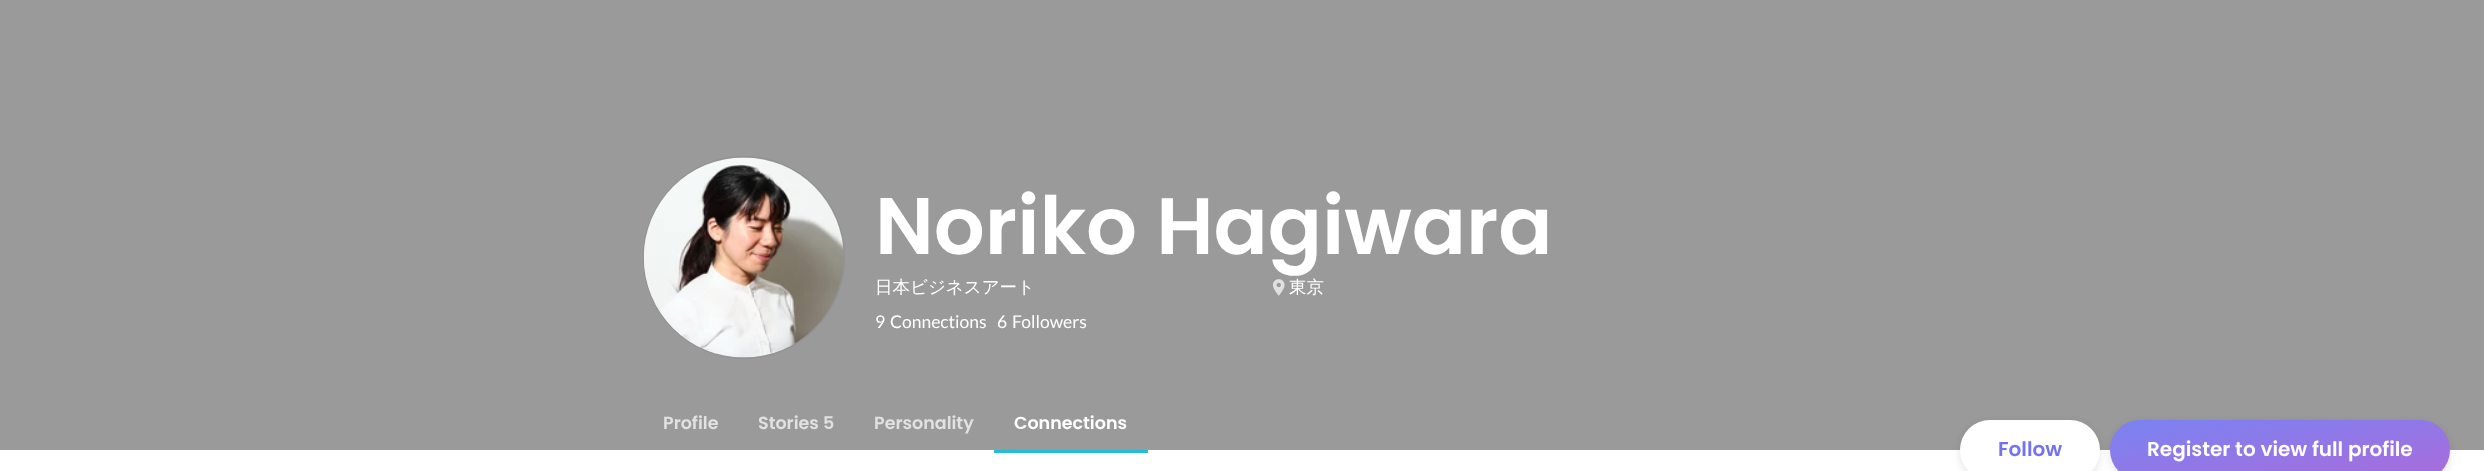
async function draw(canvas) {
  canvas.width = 2484;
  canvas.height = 471;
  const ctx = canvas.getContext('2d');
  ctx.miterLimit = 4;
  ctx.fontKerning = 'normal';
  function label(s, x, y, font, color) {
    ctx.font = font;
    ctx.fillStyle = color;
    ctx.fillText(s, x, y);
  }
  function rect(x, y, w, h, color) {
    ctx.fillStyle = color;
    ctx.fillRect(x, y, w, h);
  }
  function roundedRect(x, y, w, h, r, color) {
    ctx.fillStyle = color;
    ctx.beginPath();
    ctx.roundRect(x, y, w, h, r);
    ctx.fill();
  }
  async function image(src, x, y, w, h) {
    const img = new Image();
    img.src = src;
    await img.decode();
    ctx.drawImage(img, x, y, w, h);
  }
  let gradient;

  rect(0, 0, 2484, 471, '#fff');
  rect(0, 0, 2484, 450, '#9a9a9a');
  ctx.beginPath();
  ctx.roundRect(643.5, 156.5, 201, 202, 100.5);
  ctx.strokeStyle = '#919191';
  ctx.stroke();
  await image('assets/img1.png', 643, 157, 201, 201);
  label('Noriko Hagiwara', 875, 254, '600 80px Poppins', '#fff');
  label('日本ビジネスアート', 875, 293, '500 17.5px WenQuanYi Zen Hei', '#fff');
  await image('assets/img2.png', 1273, 279, 12, 17);
  label('東京', 1289, 293, '500 17.5px WenQuanYi Zen Hei', '#fff');
  label('9', 875, 328, '17.5px Lato', '#fff');
  label('Connections', 890, 328, '17.5px Lato', '#fff');
  label('6', 997, 328, '17.5px Lato', '#fff');
  label('Followers', 1012, 328, '17.5px Lato', '#fff');
  label('Profile', 663, 429, '600 17.5px Poppins', '#e1e1e1');
  label('Stories 5', 758, 429, '600 17.5px Poppins', '#e1e1e1');
  label('Personality', 874, 429, '600 17.5px Poppins', '#e1e1e1');
  rect(994, 450, 154, 3, '#21bddb');
  label('Connections', 1014, 429, '600 17.5px Poppins', '#fff');
  ctx.fillStyle = '#0000001a';
  ctx.filter = 'blur(4px)';
  ctx.beginPath();
  ctx.roundRect(1960, 423, 140, 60, 30);
  ctx.fill();
  ctx.filter = 'none';
  roundedRect(1960, 420, 140, 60, 30, '#fff');
  label('Follow', 1998, 456, '600 20px Poppins', '#7372f2');
  ctx.fillStyle = '#0000001a';
  ctx.filter = 'blur(4px)';
  ctx.beginPath();
  ctx.roundRect(2110, 423, 340, 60, 30);
  ctx.fill();
  ctx.filter = 'none';
  gradient = ctx.createLinearGradient(2270, 392, 2290, 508);
  gradient.addColorStop(0, '#7983f2');
  gradient.addColorStop(1, '#ab6bdb');
  ctx.fillStyle = gradient;
  ctx.beginPath();
  ctx.roundRect(2110, 420, 340, 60, 30);
  ctx.fill();
  label('Register to view full profile', 2147, 456, '600 20px Poppins', '#fff');
}

draw(document.querySelector('canvas'));
